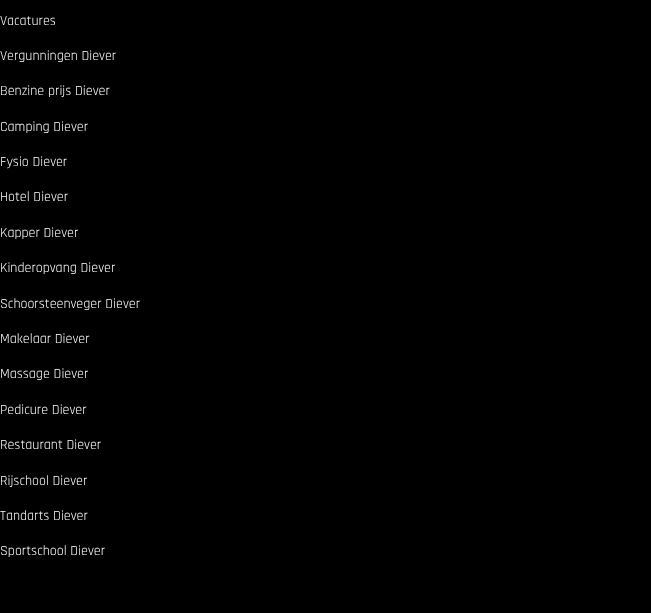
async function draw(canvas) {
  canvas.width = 651;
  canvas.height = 613;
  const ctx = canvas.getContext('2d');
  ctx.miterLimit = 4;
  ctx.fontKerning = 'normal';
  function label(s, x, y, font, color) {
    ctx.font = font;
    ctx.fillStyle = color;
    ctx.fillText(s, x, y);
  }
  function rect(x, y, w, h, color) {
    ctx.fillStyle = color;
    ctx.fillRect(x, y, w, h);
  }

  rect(0, 0, 651, 613, '#000');
  label('Vacatures', 0, 25, '14px Rajdhani', '#fff');
  label('Vergunningen Diever', 0, 60, '14px Rajdhani', '#fff');
  label('Benzine prijs Diever', 0, 95, '14px Rajdhani', '#fff');
  label('Camping Diever', 0, 131, '14px Rajdhani', '#fff');
  label('Fysio Diever', 0, 166, '14px Rajdhani', '#fff');
  label('Hotel Diever', 0, 201, '14px Rajdhani', '#fff');
  label('Kapper Diever', 0, 237, '14px Rajdhani', '#fff');
  label('Kinderopvang Diever', 0, 272, '14px Rajdhani', '#fff');
  label('Schoorsteenveger Diever', 0, 308, '14px Rajdhani', '#fff');
  label('Makelaar Diever', 0, 343, '14px Rajdhani', '#fff');
  label('Massage Diever', 0, 378, '14px Rajdhani', '#fff');
  label('Pedicure Diever', 0, 414, '14px Rajdhani', '#fff');
  label('Restaurant Diever', 0, 449, '14px Rajdhani', '#fff');
  label('Rijschool Diever', 0, 485, '14px Rajdhani', '#fff');
  label('Tandarts Diever', 0, 520, '14px Rajdhani', '#fff');
  label('Sportschool Diever', 0, 555, '14px Rajdhani', '#fff');
}

draw(document.querySelector('canvas'));
